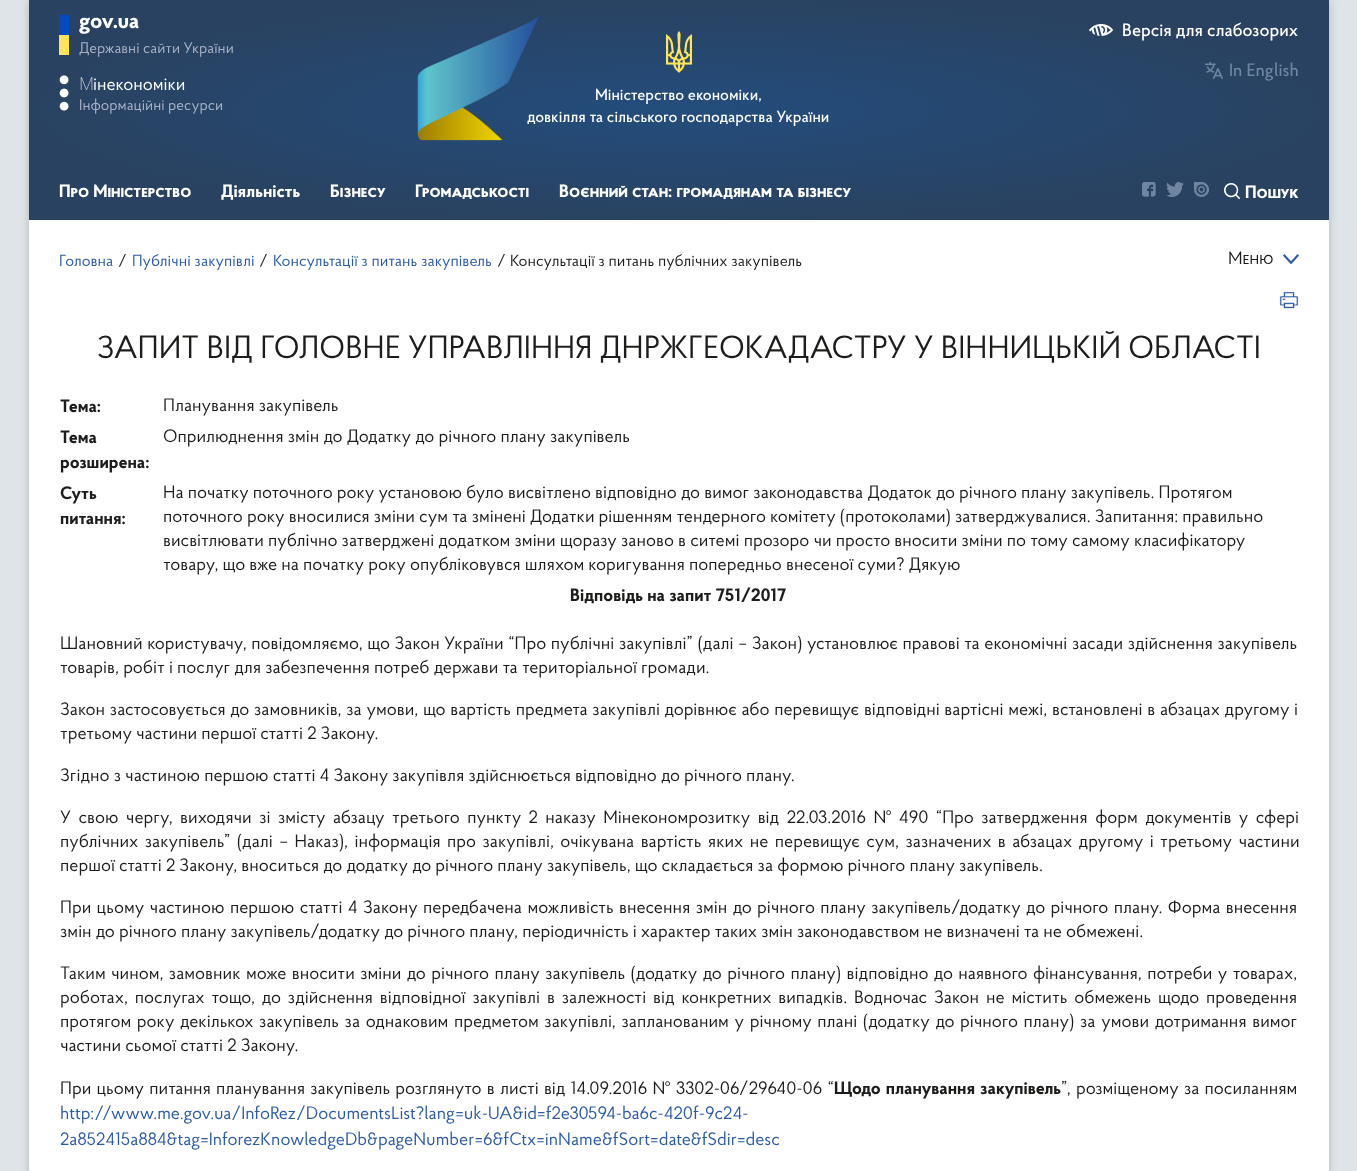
async function draw(canvas) {
  canvas.width = 1357;
  canvas.height = 1171;
  const ctx = canvas.getContext('2d');
  ctx.miterLimit = 4;
  ctx.fontKerning = 'normal';
  function label(s, x, y, font, color) {
    ctx.font = font;
    ctx.fillStyle = color;
    ctx.fillText(s, x, y);
  }
  function rect(x, y, w, h, color) {
    ctx.fillStyle = color;
    ctx.fillRect(x, y, w, h);
  }
  async function image(src, x, y, w, h) {
    const img = new Image();
    img.src = src;
    await img.decode();
    ctx.drawImage(img, x, y, w, h);
  }
  let gradient;

  rect(0, 0, 1357, 1171, '#dee4e7');
  ctx.fillStyle = '#00000033';
  ctx.filter = 'blur(4px)';
  ctx.beginPath();
  ctx.rect(29, 1, 1300, 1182);
  ctx.fill();
  ctx.filter = 'none';
  rect(29, 220, 1300, 951, '#fff');
  gradient = ctx.createRadialGradient(679, 650, 0, 679, 650, 650);
  gradient.addColorStop(0, '#234d7d');
  gradient.addColorStop(1, '#294261');
  ctx.fillStyle = gradient;
  ctx.beginPath();
  ctx.rect(29, 0, 1300, 220);
  ctx.save();
  ctx.clip();
  ctx.scale(1, 110 / 650);
  ctx.fillRect(0, 0, 1357, 6920);
  ctx.restore();
  rect(59, 15, 10, 20, '#004bc1');
  rect(59, 35, 10, 20, '#ffe358');
  label('gov.ua', 79, 28, 'bold 22.5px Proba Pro', '#fff');
  label('Державні сайти України', 79, 53, '15.25px Proba Pro', '#aab3c6');
  await image('assets/img1.png', 59, 75, 10, 36);
  label('М', 79, 90, '100 18px Noto Sans', '#fff');
  label('інекономіки', 93, 90, '18px Proba Pro', '#fff');
  label('Інформаційні ресурси', 79, 110, '15.25px Proba Pro', '#aab3c6');
  await image('assets/img2.png', 1089, 24, 24, 12);
  label('Версія для слабозорих', 1122, 36, '500 18px Proba Pro', '#fff');
  await image('assets/img3.png', 1205, 62, 19, 17);
  label('In English', 1229, 76, '500 18px Proba Pro', '#6f86a1');
  await image('assets/img4.png', 417, 16, 122, 125);
  await image('assets/img5.png', 666, 31, 26, 42);
  label('Міністерство економіки,', 595, 100, '500 16px Proba Pro', '#fff');
  label('довкілля та сільського господарства України', 527, 122, '500 16px Proba Pro', '#fff');
  label('Про Міністерство', 59, 197, 'bold 18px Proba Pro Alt', '#fff');
  label('Діяльність', 221, 197, 'bold 18px Proba Pro', '#fff');
  label('Бізнесу', 330, 197, 'bold 18px Proba Pro Alt', '#fff');
  label('Громадськості', 415, 197, 'bold 18px Proba Pro Alt', '#fff');
  label('Воєнний стан: громадянам та бізнесу', 559, 197, 'bold 18px Proba Pro Alt', '#fff');
  await image('assets/img6.png', 1142, 182, 14, 15);
  await image('assets/img7.png', 1166, 182, 18, 15);
  await image('assets/img8.png', 1194, 182, 15, 15);
  await image('assets/img9.png', 1224, 183, 16, 16);
  label('Пошук', 1245, 198, 'bold 18px Proba Pro Alt', '#fff');
  label('Головна', 59, 266, '16px Proba Pro', '#2d5ca6');
  label('/', 118, 266, '16px Proba Pro', '#1d1d1b');
  label('Публічні закупівлі', 132, 266, '16px Proba Pro', '#2d5ca6');
  label('/', 259, 266, '16px Proba Pro', '#1d1d1b');
  label('Консультації з питань закупівель', 273, 266, '16px Proba Pro', '#2d5ca6');
  label('/', 497, 266, '16px Proba Pro', '#1d1d1b');
  label('Консультації з питань публічних закупівель', 510, 266, '16px Proba Pro', '#1d1d1b');
  label('Меню', 1228, 264, '18px Proba Pro Alt', '#1d1d1b');
  await image('assets/img10.png', 1283, 254, 16, 10);
  await image('assets/img11.png', 1279, 291, 20, 18);
  label('ЗАПИТ ВІД ГОЛОВНЕ УПРАВЛІННЯ ДНРЖГЕОКАДАСТРУ У ВІННИЦЬКІЙ ОБЛАСТІ', 97, 358, '32px Proba Pro', '#1d1d1b');
  label('Тема:', 60, 412, 'bold 18px Proba Pro', '#1d1d1b');
  label('Планування закупівель', 163, 411, '18px Proba Pro', '#1d1d1b');
  label('Тема', 60, 443, 'bold 18px Proba Pro', '#1d1d1b');
  label('розширена:', 60, 468, 'bold 18px Proba Pro', '#1d1d1b');
  label('Оприлюднення змін до Додатку до річного плану закупівель', 163, 442, '18px Proba Pro', '#1d1d1b');
  label('Суть', 60, 499, 'bold 18px Proba Pro', '#1d1d1b');
  label('питання:', 60, 524, 'bold 18px Proba Pro', '#1d1d1b');
  label('На початку поточного року установою було висвітлено відповідно до вимог законодавства Додаток до річного плану закупівель. Протягом', 163, 498, '18px Proba Pro', '#1d1d1b');
  label('поточного року вносилися зміни сум та змінені Додатки рішенням тендерного комітету (протоколами) затверджувалися. Запитання: правильно', 163, 522, '18px Proba Pro', '#1d1d1b');
  label('висвітлювати публічно затверджені додатком зміни щоразу заново в ситемі прозоро чи просто вносити зміни по тому самому класифікатору', 163, 546, '18px Proba Pro', '#1d1d1b');
  label('товару, що вже на початку року опубліковувся шляхом коригування попередньо внесеної суми? Дякую', 163, 570, '18px Proba Pro', '#1d1d1b');
  label('Відповідь на запит 751/2017', 570, 601, 'bold 18px Proba Pro', '#1d1d1b');
  ctx.wordSpacing = '0.5px';
  label('Шановний користувачу, повідомляємо, що Закон України “Про публічні закупівлі” (далі – Закон) установлює правові та економічні засади здійснення закупівель', 60, 649, '18px Proba Pro', '#1d1d1b');
  ctx.wordSpacing = '0px';
  label('товарів, робіт і послуг для забезпечення потреб держави та територіальної громади.', 60, 673, '18px Proba Pro', '#1d1d1b');
  ctx.wordSpacing = '0.55px';
  label('Закон застосовується до замовників, за умови, що вартість предмета закупівлі дорівнює або перевищує відповідні вартісні межі, встановлені в абзацах другому і', 60, 715, '18px Proba Pro', '#1d1d1b');
  ctx.wordSpacing = '0px';
  label('третьому частини першої статті 2 Закону.', 60, 739, '18px Proba Pro', '#1d1d1b');
  label('Згідно з частиною першою статті 4 Закону закупівля здійснюється відповідно до річного плану.', 60, 781, '18px Proba Pro', '#1d1d1b');
  ctx.wordSpacing = '3.3px';
  label('У свою чергу, виходячи зі змісту абзацу третього пункту 2 наказу Мінекономрозитку від 22.03.2016 № 490 “Про затвердження форм документів у сфері', 60, 823, '18px Proba Pro', '#1d1d1b');
  ctx.wordSpacing = '2.25px';
  label('публічних закупівель” (далі – Наказ), інформація про закупівлі, очікувана вартість яких не перевищує сум, зазначених в абзацах другому і третьому частини', 60, 847, '18px Proba Pro', '#1d1d1b');
  ctx.wordSpacing = '0px';
  label('першої статті 2 Закону, вноситься до додатку до річного плану закупівель, що складається за формою річного плану закупівель.', 60, 871, '18px Proba Pro', '#1d1d1b');
  ctx.wordSpacing = '1.25px';
  label('При цьому частиною першою статті 4 Закону передбачена можливість внесення змін до річного плану закупівель/додатку до річного плану. Форма внесення', 60, 913, '18px Proba Pro', '#1d1d1b');
  ctx.wordSpacing = '0px';
  label('змін до річного плану закупівель/додатку до річного плану, періодичність і характер таких змін законодавством не визначені та не обмежені.', 60, 937, '18px Proba Pro', '#1d1d1b');
  ctx.wordSpacing = '1.25px';
  label('Таким чином, замовник може вносити зміни до річного плану закупівель (додатку до річного плану) відповідно до наявного фінансування, потреби у товарах,', 60, 979, '18px Proba Pro', '#1d1d1b');
  ctx.wordSpacing = '2.75px';
  label('роботах, послугах тощо, до здійснення відповідної закупівлі в залежності від конкретних випадків. Водночас Закон не містить обмежень щодо проведення', 60, 1003, '18px Proba Pro', '#1d1d1b');
  ctx.wordSpacing = '1.5px';
  label('протягом року декількох закупівель за однаковим предметом закупівлі, запланованим у річному плані (додатку до річного плану) за умови дотримання вимог', 60, 1027, '18px Proba Pro', '#1d1d1b');
  ctx.wordSpacing = '0px';
  label('частини сьомої статті 2 Закону.', 60, 1051, '18px Proba Pro', '#1d1d1b');
  ctx.wordSpacing = '1.1px';
  label('При цьому питання планування закупівель розглянуто в листі від 14.09.2016 № 3302-06/29640-06 “', 60, 1094, '18px Proba Pro', '#1d1d1b');
  ctx.wordSpacing = '1px';
  label('Щодо планування закупівель', 834, 1094, 'bold 18px Proba Pro', '#1d1d1b');
  label('”, розміщеному за посиланням', 1061, 1094, '18px Proba Pro', '#1d1d1b');
  ctx.wordSpacing = '0px';
  label('http://www.me.gov.ua/InfoRez/DocumentsList?lang=uk-UA&id=f2e30594-ba6c-420f-9c24-', 60, 1119, '18px Proba Pro', '#2d5ca6');
  label('2a852415a884&tag=InforezKnowledgeDb&pageNumber=6&fCtx=inName&fSort=date&fSdir=desc', 60, 1145, '18px Proba Pro', '#2d5ca6');
}

draw(document.querySelector('canvas'));
